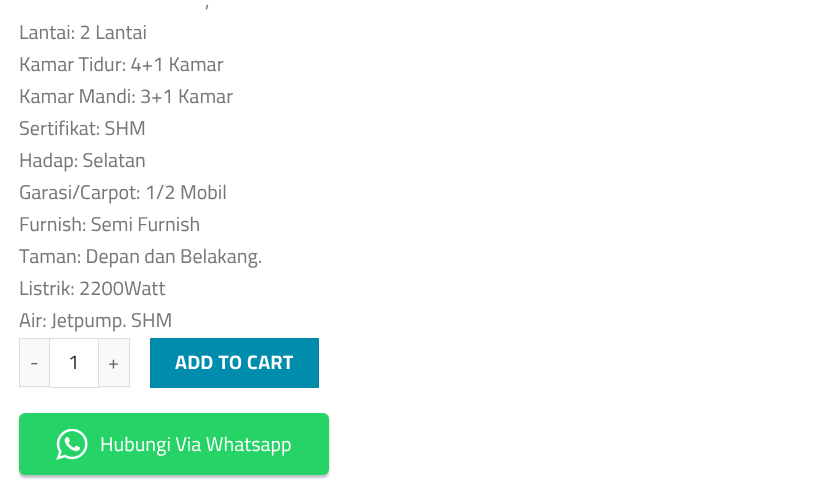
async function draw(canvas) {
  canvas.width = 829;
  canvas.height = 494;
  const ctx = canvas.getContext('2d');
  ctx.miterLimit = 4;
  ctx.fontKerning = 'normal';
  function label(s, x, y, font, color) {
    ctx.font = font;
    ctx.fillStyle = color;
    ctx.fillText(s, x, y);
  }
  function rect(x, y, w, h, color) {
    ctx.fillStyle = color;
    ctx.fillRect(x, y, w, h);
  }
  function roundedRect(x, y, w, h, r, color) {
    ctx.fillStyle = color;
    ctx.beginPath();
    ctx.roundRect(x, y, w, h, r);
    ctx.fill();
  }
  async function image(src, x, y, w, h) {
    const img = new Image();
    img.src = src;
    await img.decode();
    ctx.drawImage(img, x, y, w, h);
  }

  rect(0, 0, 829, 494, '#fff');
  label(',', 205, 7, '20px Cairo', '#777');
  label('Lantai: 2 Lantai', 19, 39, '20px Cairo', '#777');
  label('Kamar Tidur: 4+1 Kamar', 19, 71, '20px Cairo', '#777');
  label('Kamar Mandi: 3+1 Kamar', 19, 103, '20px Cairo', '#777');
  label('Sertifikat: SHM', 19, 135, '20px Cairo', '#777');
  label('Hadap: Selatan', 19, 167, '20px Cairo', '#777');
  label('Garasi/Carpot: 1/2 Mobil', 19, 199, '20px Cairo', '#777');
  label('Furnish: Semi Furnish', 19, 231, '20px Cairo', '#777');
  label('Taman: Depan dan Belakang.', 19, 263, '20px Cairo', '#777');
  label('Listrik: 2200Watt', 19, 295, '20px Cairo', '#777');
  label('Air: Jetpump. SHM', 19, 327, '20px Cairo', '#777');
  rect(20, 339, 29, 49, '#f9f9f9');
  rect(19, 338, 30, 1, '#ddd');
  rect(19, 386, 30, 1, '#ddd');
  rect(19, 338, 1, 50, '#ddd');
  ctx.letterSpacing = '0.5px';
  label('-', 30, 369, '19.5px Cairo', '#666');
  ctx.strokeStyle = '#ddd';
  ctx.strokeRect(49.5, 338.5, 49, 49);
  ctx.letterSpacing = '0px';
  label('1', 68, 369, '20px Cairo', '#333');
  rect(99, 339, 30, 49, '#f9f9f9');
  rect(99, 338, 31, 1, '#ddd');
  rect(129, 338, 1, 50, '#ddd');
  rect(99, 386, 31, 1, '#ddd');
  ctx.letterSpacing = '0.5px';
  label('+', 108, 369, '19.5px Cairo', '#666');
  ctx.fillStyle = '#008dad';
  ctx.beginPath();
  ctx.rect(150.5, 338.5, 168, 49);
  ctx.fill();
  ctx.strokeStyle = '#0086a4';
  ctx.stroke();
  label('ADD TO CART', 175, 369, 'bold 19.5px Cairo', '#fff');
  ctx.fillStyle = '#2d3e4f4d';
  ctx.filter = 'blur(1px)';
  ctx.beginPath();
  ctx.roundRect(19, 415, 310, 63, 6);
  ctx.fill();
  ctx.filter = 'none';
  roundedRect(19, 413, 310, 62, 6, '#25d366');
  await image('assets/img1.png', 56, 429, 32, 31);
  ctx.letterSpacing = '0px';
  label('Hubungi Via Whatsapp', 100, 451, '20px Cairo', '#fff');
}

draw(document.querySelector('canvas'));
